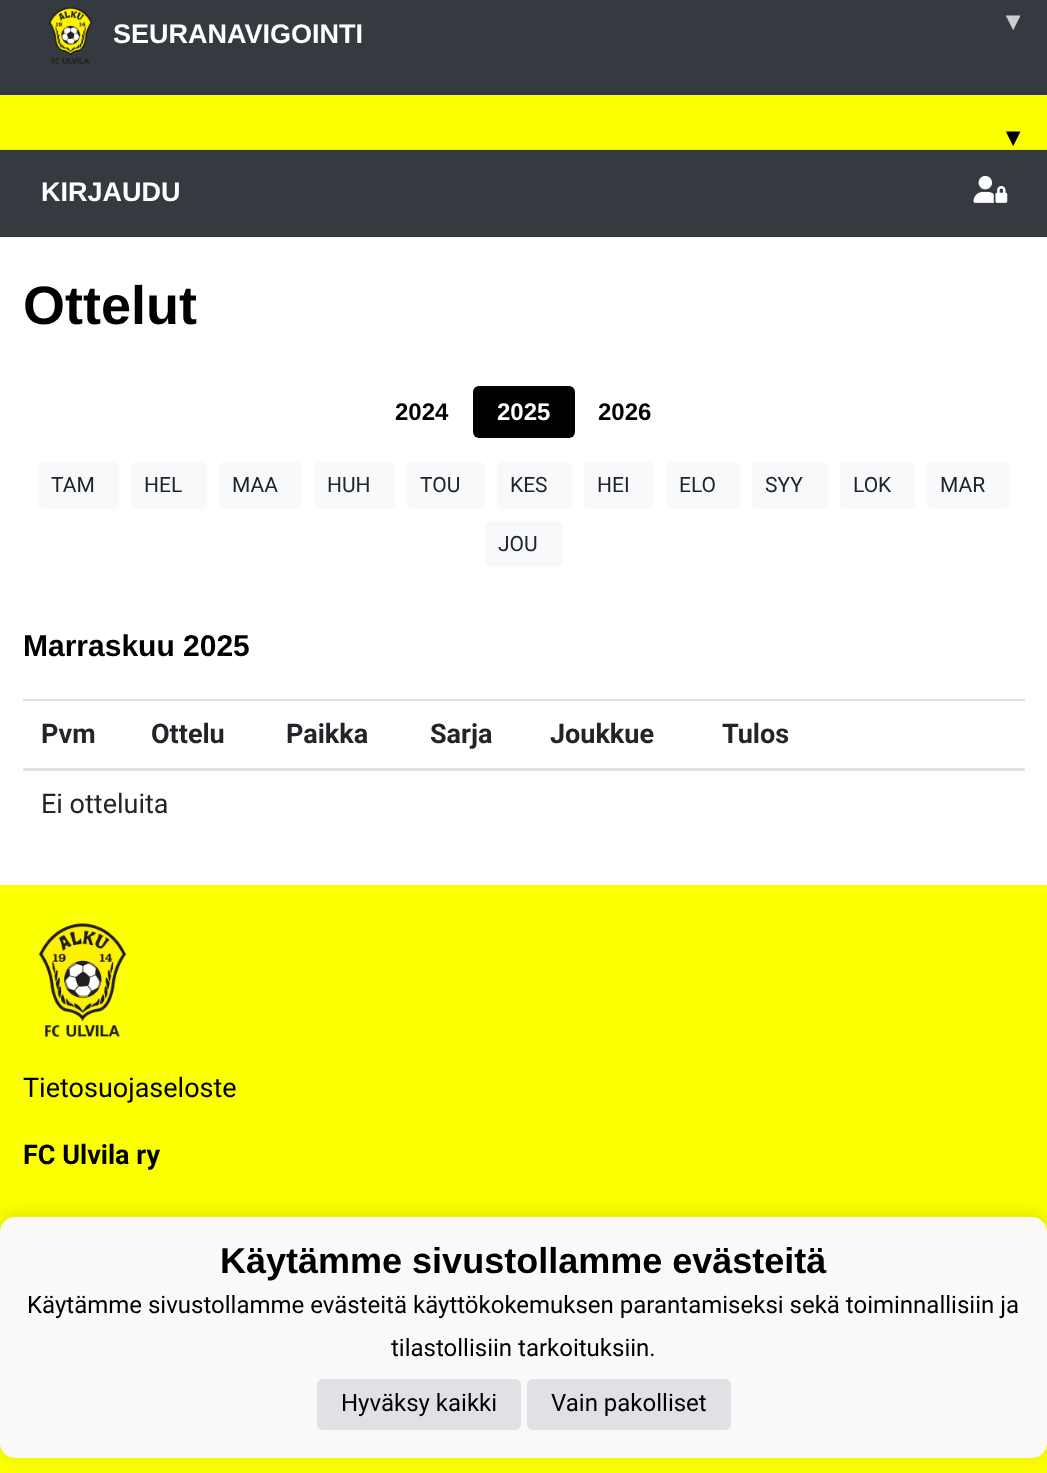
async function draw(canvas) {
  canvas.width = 1047;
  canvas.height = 1473;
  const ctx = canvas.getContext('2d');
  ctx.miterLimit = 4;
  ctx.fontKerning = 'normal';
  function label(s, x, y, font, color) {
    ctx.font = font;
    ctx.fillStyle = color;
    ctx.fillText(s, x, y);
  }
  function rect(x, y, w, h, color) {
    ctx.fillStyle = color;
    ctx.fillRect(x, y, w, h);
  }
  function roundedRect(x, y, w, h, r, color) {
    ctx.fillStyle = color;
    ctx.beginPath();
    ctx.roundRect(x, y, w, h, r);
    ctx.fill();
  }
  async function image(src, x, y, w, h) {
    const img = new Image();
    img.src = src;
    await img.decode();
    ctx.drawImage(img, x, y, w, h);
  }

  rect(0, 0, 1047, 1473, '#fff');
  rect(0, 237, 1047, 1, '#f2f2f2');
  rect(0, 0, 1047, 93, '#343a40');
  rect(0, 93, 1047, 2, '#31373d');
  await image('assets/img1.png', 48, 7, 45, 57);
  label('SEURANAVIGOINTI', 113, 43, 'bold 27px Liberation Sans', '#fff');
  label('▾', 1006, 30, 'bold 27px DejaVu Sans', '#cccecf');
  rect(0, 95, 1047, 54, '#fbff00');
  rect(0, 149, 1047, 1, '#eef200');
  label('▾', 1006, 146, 'bold 27px DejaVu Sans', '#000');
  rect(0, 151, 1047, 85, '#343a40');
  rect(0, 236, 1047, 1, '#31373d');
  rect(0, 150, 1047, 1, '#31373d');
  label('KIRJAUDU', 41, 201, 'bold 27px Liberation Sans', '#fff');
  await image('assets/img2.png', 973, 175, 35, 28);
  label('Ottelut', 23, 324, 'bold 54px Liberation Sans', '#000');
  label('2024', 395, 420, 'bold 24px Liberation Sans', '#000');
  roundedRect(473, 386, 102, 52, 6, '#000');
  label('2025', 497, 420, 'bold 24px Liberation Sans', '#fff');
  label('2026', 598, 420, 'bold 24px Liberation Sans', '#000');
  roundedRect(38, 462, 81, 47, 5, '#f8f9fa');
  label('TAM', 51, 492, '21px Roboto', '#212529');
  roundedRect(131, 462, 76, 47, 5, '#f8f9fa');
  label('HEL', 144, 492, '21px Roboto', '#212529');
  roundedRect(219, 462, 83, 47, 5, '#f8f9fa');
  label('MAA', 232, 492, '21px Roboto', '#212529');
  roundedRect(314, 462, 81, 47, 5, '#f8f9fa');
  label('HUH', 327, 492, '21px Roboto', '#212529');
  roundedRect(407, 462, 78, 47, 5, '#f8f9fa');
  label('TOU', 420, 492, '21px Roboto', '#212529');
  roundedRect(497, 462, 75, 47, 5, '#f8f9fa');
  label('KES', 510, 492, '21px Roboto', '#212529');
  roundedRect(584, 462, 70, 47, 5, '#f8f9fa');
  label('HEI', 597, 492, '21px Roboto', '#212529');
  roundedRect(666, 462, 74, 47, 5, '#f8f9fa');
  label('ELO', 679, 492, '21px Roboto', '#212529');
  roundedRect(752, 462, 76, 47, 5, '#f8f9fa');
  label('SYY', 765, 492, '21px Roboto', '#212529');
  roundedRect(840, 462, 75, 47, 5, '#f8f9fa');
  label('LOK', 853, 492, '21px Roboto', '#212529');
  roundedRect(927, 462, 83, 47, 5, '#f8f9fa');
  label('MAR', 940, 492, '21px Roboto', '#212529');
  roundedRect(485, 521, 78, 46, 5, '#f8f9fa');
  label('JOU', 498, 551, '21px Roboto', '#212529');
  label('Marraskuu 2025', 23, 656, 'bold 30px Liberation Sans', '#000');
  label('Pvm', 41, 743, 'bold 27px Roboto', '#212529');
  label('Ottelu', 151, 743, 'bold 27px Roboto', '#212529');
  label('Paikka', 286, 743, 'bold 27px Roboto', '#212529');
  label('Sarja', 430, 743, 'bold 27px Roboto', '#212529');
  label('Joukkue', 550, 743, 'bold 27px Roboto', '#212529');
  rect(23, 699, 1002, 2, '#dee2e6');
  rect(23, 768, 1002, 3, '#dee2e6');
  label('Tulos', 722, 743, 'bold 27px Roboto', '#212529');
  label('Ei otteluita', 41, 813, '27px Roboto', '#212529');
  rect(0, 885, 1047, 588, '#fbff00');
  await image('assets/img3.png', 38, 923, 89, 114);
  label('Tietosuojaseloste', 23, 1097, '27px Roboto', '#000');
  label('FC Ulvila ry', 23, 1164, 'bold 27px Roboto', '#000');
  ctx.fillStyle = '#0000001a';
  ctx.filter = 'blur(7.5px)';
  ctx.beginPath();
  ctx.roundRect(0, 1214, 1047, 241, 15);
  ctx.fill();
  ctx.filter = 'none';
  roundedRect(0, 1217, 1047, 241, 15, '#faf8f8');
  label('Käytämme sivustollamme evästeitä', 220, 1273, 'bold 36px Liberation Sans', '#000');
  label('Käytämme sivustollamme evästeitä käyttökokemuksen parantamiseksi sekä toiminnallisiin ja', 27, 1313, '24px Roboto', '#000');
  label('tilastollisiin tarkoituksiin.', 391, 1356, '24px Roboto', '#000');
  roundedRect(317, 1379, 204, 51, 6, '#dfe1e5');
  label('Hyväksy kaikki', 341, 1411, '24px Roboto', '#000');
  roundedRect(527, 1379, 204, 51, 6, '#dfe1e5');
  label('Vain pakolliset', 551, 1411, '24px Roboto', '#000');
}

draw(document.querySelector('canvas'));
